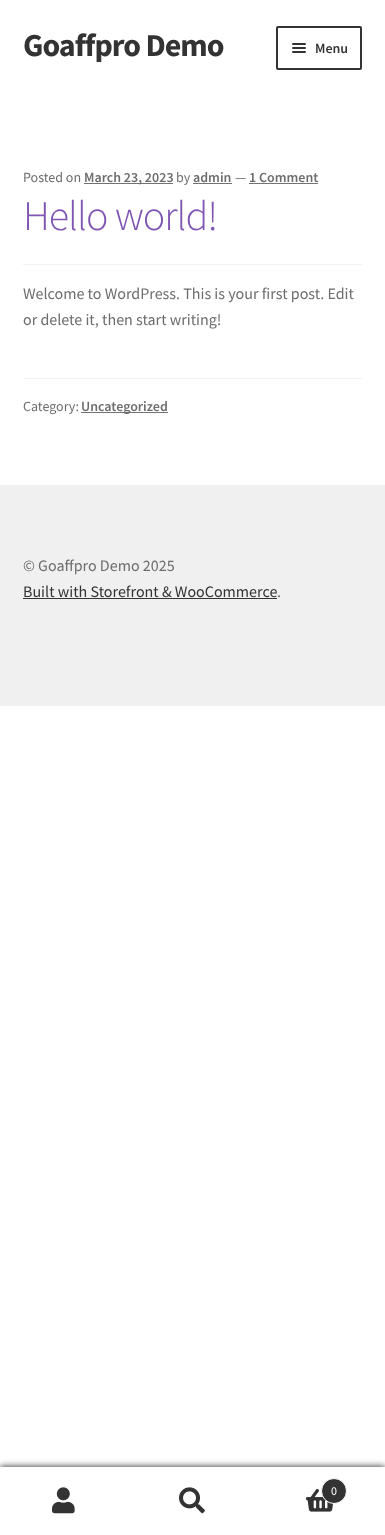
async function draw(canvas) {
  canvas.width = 385;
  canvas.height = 1535;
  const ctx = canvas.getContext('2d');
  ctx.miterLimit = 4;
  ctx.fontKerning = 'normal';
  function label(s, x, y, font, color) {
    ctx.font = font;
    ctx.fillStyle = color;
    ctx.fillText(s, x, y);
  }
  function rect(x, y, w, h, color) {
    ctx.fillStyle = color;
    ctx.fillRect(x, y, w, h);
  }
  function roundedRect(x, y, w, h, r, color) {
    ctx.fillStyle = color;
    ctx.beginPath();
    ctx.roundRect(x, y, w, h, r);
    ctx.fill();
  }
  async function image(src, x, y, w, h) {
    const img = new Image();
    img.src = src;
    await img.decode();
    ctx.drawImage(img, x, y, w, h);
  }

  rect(0, 0, 385, 1535, '#fff');
  ctx.letterSpacing = '-1px';
  label('Goaffpro Demo', 23, 56, 'bold 32px Source Sans Pro', '#333');
  ctx.beginPath();
  ctx.roundRect(277, 27, 84, 42, 1);
  ctx.strokeStyle = '#333';
  ctx.lineWidth = 2;
  ctx.stroke();
  roundedRect(292, 43, 14, 2, 1, '#333');
  roundedRect(292, 47, 14, 2, 1, '#333');
  ctx.letterSpacing = '0px';
  label('Menu', 315, 53, '600 14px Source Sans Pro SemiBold', '#333');
  roundedRect(292, 51, 14, 2, 1, '#333');
  rect(23, 264, 339, 1, '#f2f2f2');
  label('Posted on', 23, 182, '14px Source Sans Pro', '#6d6d6d');
  rect(84, 183, 89, 1, '#727272');
  label('March 23, 2023', 84, 182, '600 14px Source Sans Pro SemiBold', '#6d6d6d');
  label('by', 176, 182, '14px Source Sans Pro', '#6d6d6d');
  rect(193, 183, 39, 1, '#727272');
  label('admin', 193, 182, '600 14px Source Sans Pro SemiBold', '#6d6d6d');
  label('—', 235, 182, '14px Source Sans Pro', '#6d6d6d');
  label('1 Comment', 249, 182, '600 14px Source Sans Pro SemiBold', '#6d6d6d');
  rect(249, 183, 69, 1, '#727272');
  ctx.letterSpacing = '-1px';
  label('Hello world!', 23, 230, '300 42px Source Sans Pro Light', '#7f54b3');
  ctx.letterSpacing = '0px';
  label('Welcome to WordPress. This is your first post. Edit', 23, 299, '16px Source Sans Pro', '#6d6d6d');
  label('or delete it, then start writing!', 23, 325, '16px Source Sans Pro', '#6d6d6d');
  rect(23, 378, 339, 1, '#f2f2f2');
  label('Category:', 23, 411, '14px Source Sans Pro', '#6d6d6d');
  rect(81, 412, 87, 1, '#727272');
  label('Uncategorized', 81, 411, '600 14px Source Sans Pro SemiBold', '#6d6d6d');
  rect(0, 485, 385, 221, '#f0f0f0');
  label('© Goaffpro Demo 2025', 23, 571, '16px Source Sans Pro', '#6d6d6d');
  label('Built with Storefront & WooCommerce', 23, 597, '16px Source Sans Pro', '#333');
  rect(23, 598, 254, 1, '#333');
  label('.', 277, 597, '16px Source Sans Pro', '#6d6d6d');
  ctx.fillStyle = '#000000b3';
  ctx.filter = 'blur(3px)';
  ctx.beginPath();
  ctx.rect(0, 1466, 385, 69);
  ctx.fill();
  ctx.filter = 'none';
  rect(0, 1467, 385, 68, '#fff');
  await image('assets/img1.png', 52, 1487, 23, 27);
  await image('assets/img2.png', 179, 1487, 26, 27);
  await image('assets/img3.png', 306, 1489, 28, 23);
  ctx.fillStyle = '#333';
  ctx.beginPath();
  ctx.arc(334, 1491, 12.5, 0, 2 * Math.PI);
  ctx.fill();
  ctx.strokeStyle = '#fff';
  ctx.lineWidth = 1;
  ctx.stroke();
  label('0', 331, 1495, '12px Source Sans Pro', '#fff');
}

draw(document.querySelector('canvas'));
